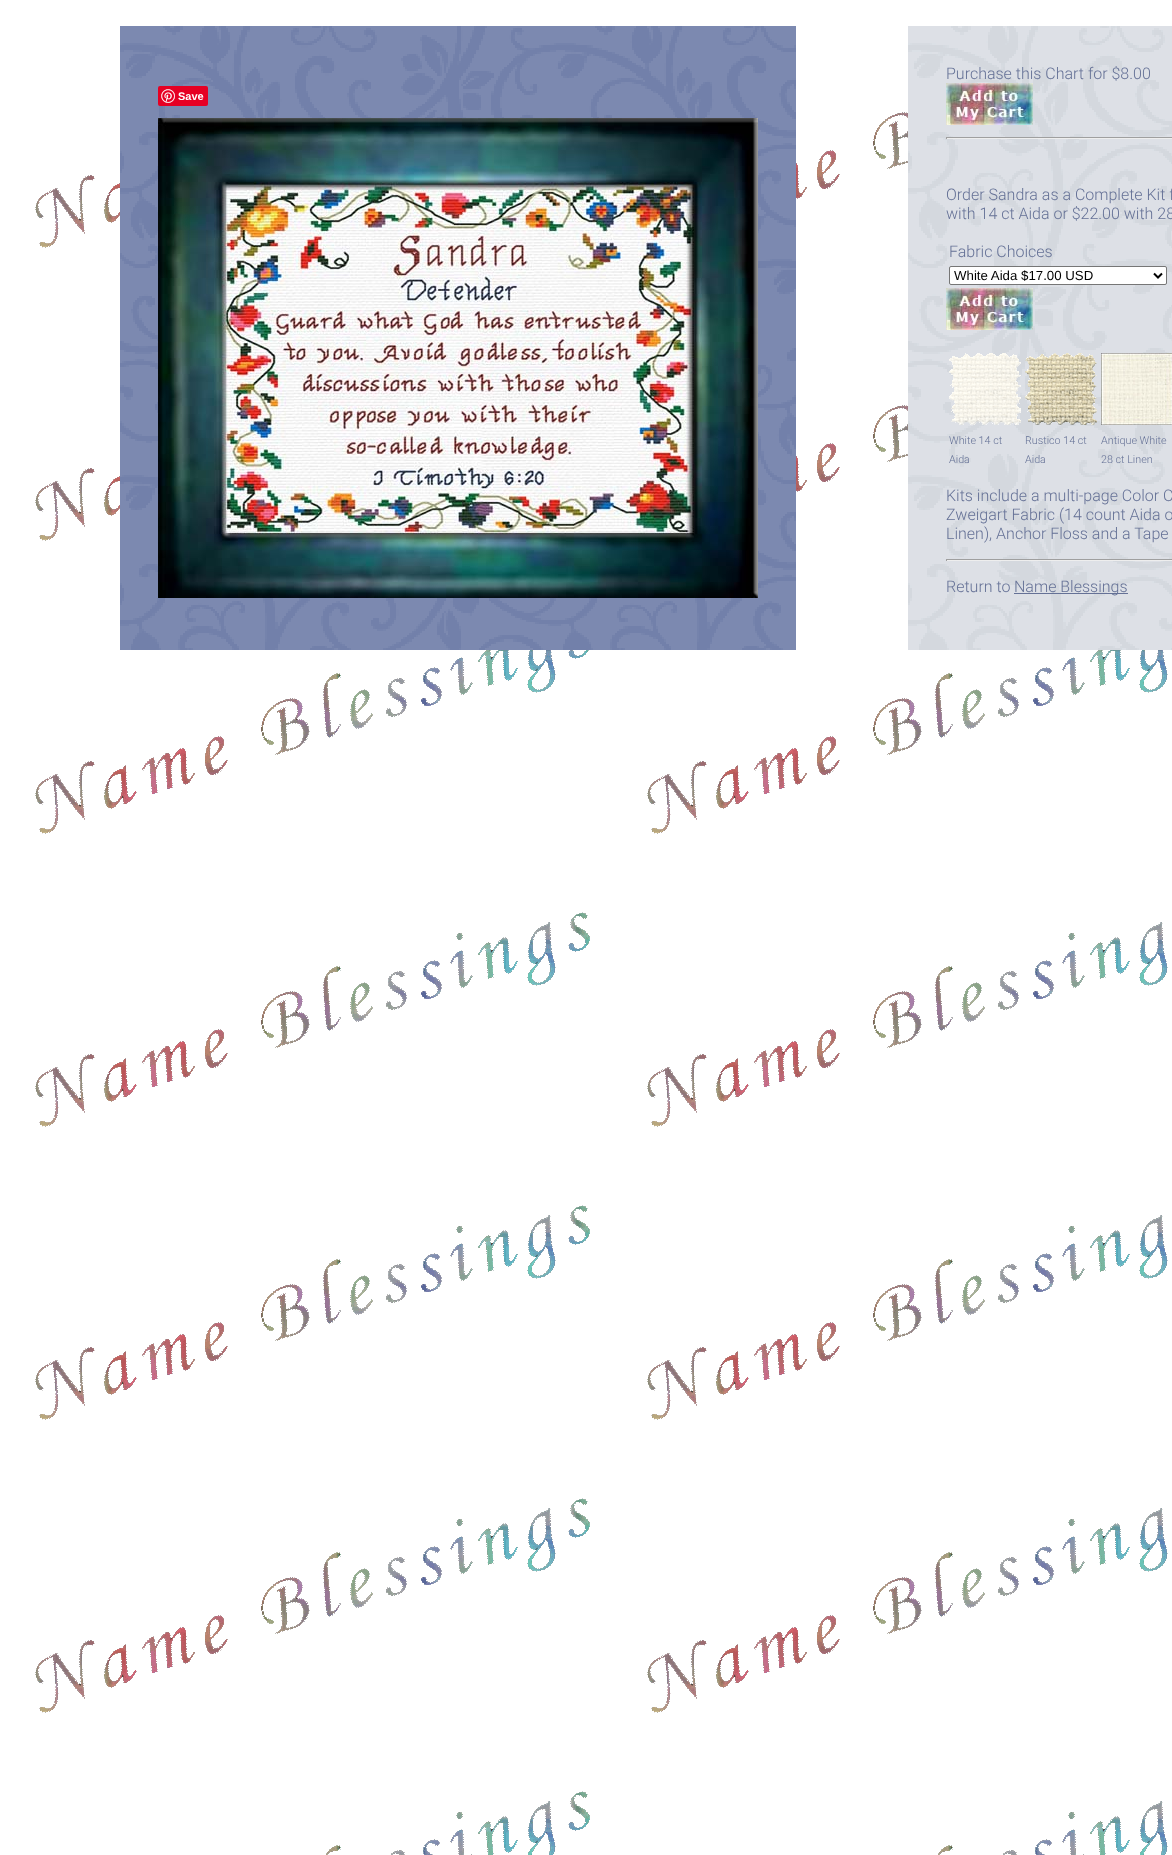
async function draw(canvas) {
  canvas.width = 1172;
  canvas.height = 1855;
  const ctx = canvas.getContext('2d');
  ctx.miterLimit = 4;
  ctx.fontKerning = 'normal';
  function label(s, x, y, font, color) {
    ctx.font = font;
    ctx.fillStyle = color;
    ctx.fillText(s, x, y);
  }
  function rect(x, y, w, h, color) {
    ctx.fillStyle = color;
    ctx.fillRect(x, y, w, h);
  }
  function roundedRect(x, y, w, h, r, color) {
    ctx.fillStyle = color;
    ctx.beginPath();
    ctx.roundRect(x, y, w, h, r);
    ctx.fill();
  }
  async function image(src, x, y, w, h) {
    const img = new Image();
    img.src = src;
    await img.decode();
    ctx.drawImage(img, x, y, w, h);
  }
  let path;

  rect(0, 0, 1172, 1855, '#fff');
  await image('assets/img1.png', 35, 112, 1133, 1743);
  await image('assets/img2.png', 120, 26, 676, 624);
  roundedRect(158, 86, 50, 20, 2, '#e60023');
  await image('assets/img3.png', 161, 89, 14, 14);
  label('Save', 178, 100, 'bold 11px Liberation Sans', '#fff');
  await image('assets/img4.png', 158, 118, 600, 480);
  await image('assets/img5.png', 908, 26, 264, 624);
  label('Purchase this Chart for $8.00', 946, 79, '300 16px Roboto', '#657196');
  await image('assets/img6.png', 946, 83, 87, 42);
  rect(946, 137, 226, 1, '#9f9f9f');
  rect(946, 138, 226, 1, '#eee');
  rect(946, 137, 1, 2, '#9f9f9f');
  label('Order Sandra as a Complete Kit f', 946, 200, '300 16px Roboto', '#657196');
  label('with 14 ct Aida or $22.00 with 28', 946, 219, '300 16px Roboto', '#657196');
  label('Fabric Choices', 949, 257, '300 16px Roboto', '#657196');
  ctx.fillStyle = '#fff';
  ctx.beginPath();
  ctx.roundRect(949.5, 266.5, 217, 18, 1.5);
  ctx.fill();
  ctx.strokeStyle = '#767676';
  ctx.stroke();
  path = new Path2D('M1154 273.5L1158 277.5L1162 273.5');
  ctx.strokeStyle = '#000';
  ctx.lineWidth = 2;
  ctx.stroke(path);
  label('White Aida $17.00 USD', 954, 280, '13.25px Liberation Sans', '#000');
  await image('assets/img6.png', 946, 288, 87, 42);
  await image('assets/img7.png', 949, 353, 72, 72);
  label('White 14 ct', 949, 444, '300 10.75px Roboto', '#657196');
  label('Aida', 949, 463, '300 10.75px Roboto', '#657196');
  await image('assets/img8.png', 1025, 353, 72, 72);
  label('Rustico 14 ct', 1025, 444, '300 10.75px Roboto', '#657196');
  label('Aida', 1025, 463, '300 10.75px Roboto', '#657196');
  await image('assets/img9.png', 1101, 353, 71, 72);
  label('Antique White', 1101, 444, '300 10.75px Roboto', '#657196');
  label('28 ct Linen', 1101, 463, '300 10.75px Roboto', '#657196');
  label('Kits include a multi-page Color C', 946, 501, '300 16px Roboto', '#657196');
  label('Zweigart Fabric (14 count Aida o', 946, 520, '300 16px Roboto', '#657196');
  label('Linen), Anchor Floss and a Tape', 946, 539, '300 16px Roboto', '#657196');
  rect(946, 559, 226, 1, '#9f9f9f');
  rect(946, 560, 226, 1, '#eee');
  rect(946, 559, 1, 2, '#9f9f9f');
  label('Return to', 946, 592, '300 16px Roboto', '#657196');
  rect(1014, 593, 114, 1, '#657196');
  label('Name Blessings', 1014, 592, '300 16px Roboto', '#657196');
}

draw(document.querySelector('canvas'));
